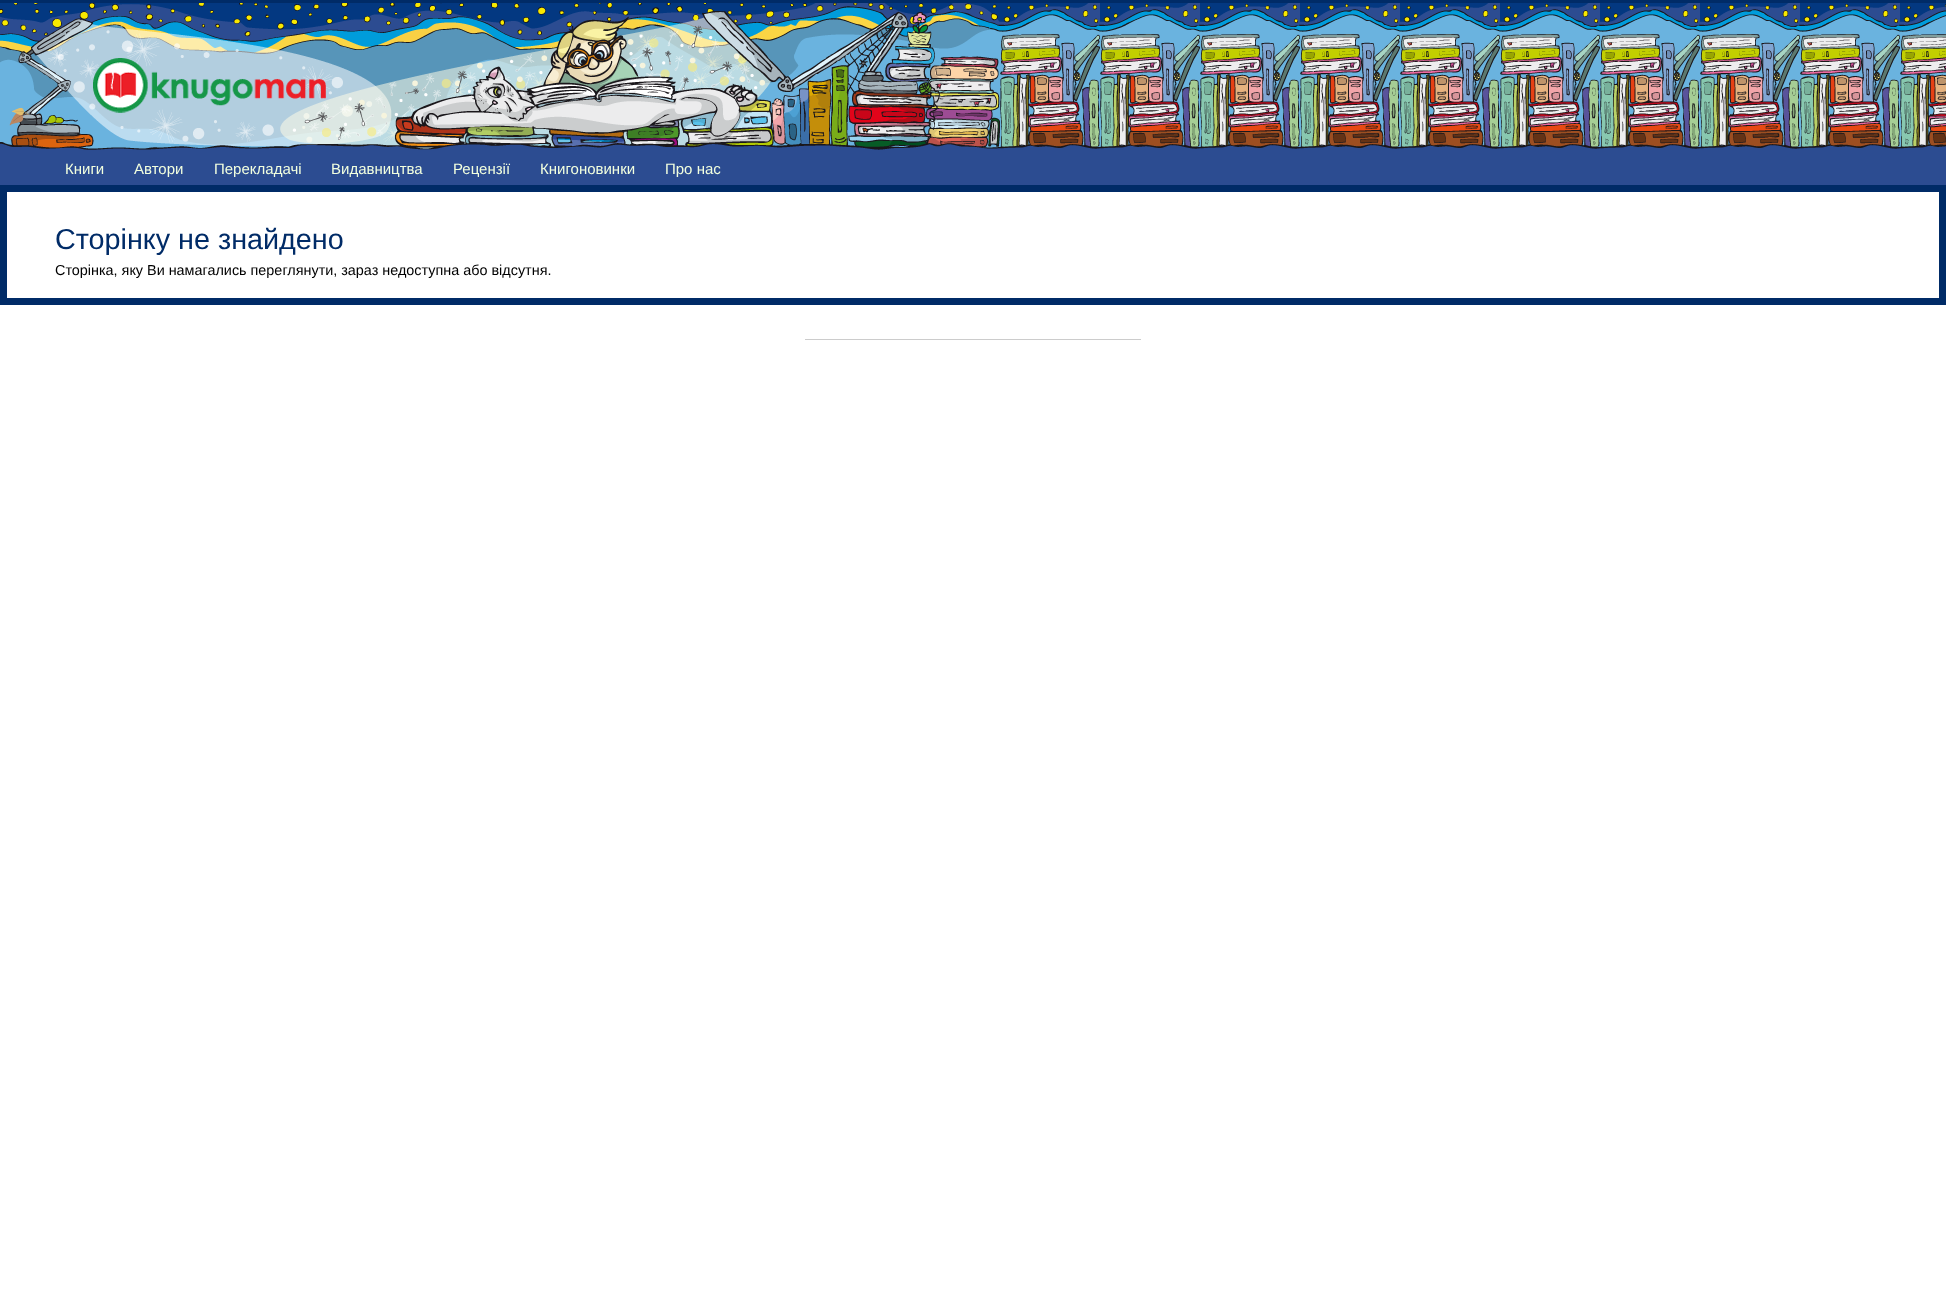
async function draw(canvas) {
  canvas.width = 1946;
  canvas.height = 1303;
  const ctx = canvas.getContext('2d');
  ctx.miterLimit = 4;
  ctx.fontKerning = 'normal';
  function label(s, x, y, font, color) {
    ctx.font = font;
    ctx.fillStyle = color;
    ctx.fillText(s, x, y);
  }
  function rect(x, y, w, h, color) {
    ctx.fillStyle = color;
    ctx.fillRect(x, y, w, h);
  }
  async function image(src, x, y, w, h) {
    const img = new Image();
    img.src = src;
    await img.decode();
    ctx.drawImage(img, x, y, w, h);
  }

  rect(0, 0, 1946, 1303, '#fff');
  await image('assets/img1.png', 0, 3, 1946, 150);
  await image('assets/img2.png', 0, 3, 1000, 147);
  rect(0, 0, 1946, 3, '#002b67');
  await image('assets/img3.png', 93, 58, 233, 55);
  rect(0, 153, 1946, 32, '#2c4c91');
  label('Книги', 65, 174, '15px Liberation Sans', '#f2ffdf');
  label('Автори', 134, 174, '15px Liberation Sans', '#f2ffdf');
  label('Перекладачі', 214, 174, '15px Liberation Sans', '#f2ffdf');
  label('Видавництва', 331, 174, '15px Liberation Sans', '#f2ffdf');
  label('Рецензії', 453, 174, '15px Liberation Sans', '#f2ffdf');
  label('Книгоновинки', 540, 174, '15px Liberation Sans', '#f2ffdf');
  label('Про нас', 665, 174, '15px Liberation Sans', '#f2ffdf');
  ctx.strokeStyle = '#002b67';
  ctx.lineWidth = 7;
  ctx.strokeRect(3.5, 188.5, 1939, 113);
  label('Сторінку не знайдено', 55, 249, '28.75px Liberation Sans', '#002b67');
  label('Сторінка, яку Ви намагались переглянути, зараз недоступна або відсутня.', 55, 275, '14.4px Liberation Sans', '#000');
  rect(805, 339, 336, 1, '#ccc');
}

draw(document.querySelector('canvas'));
